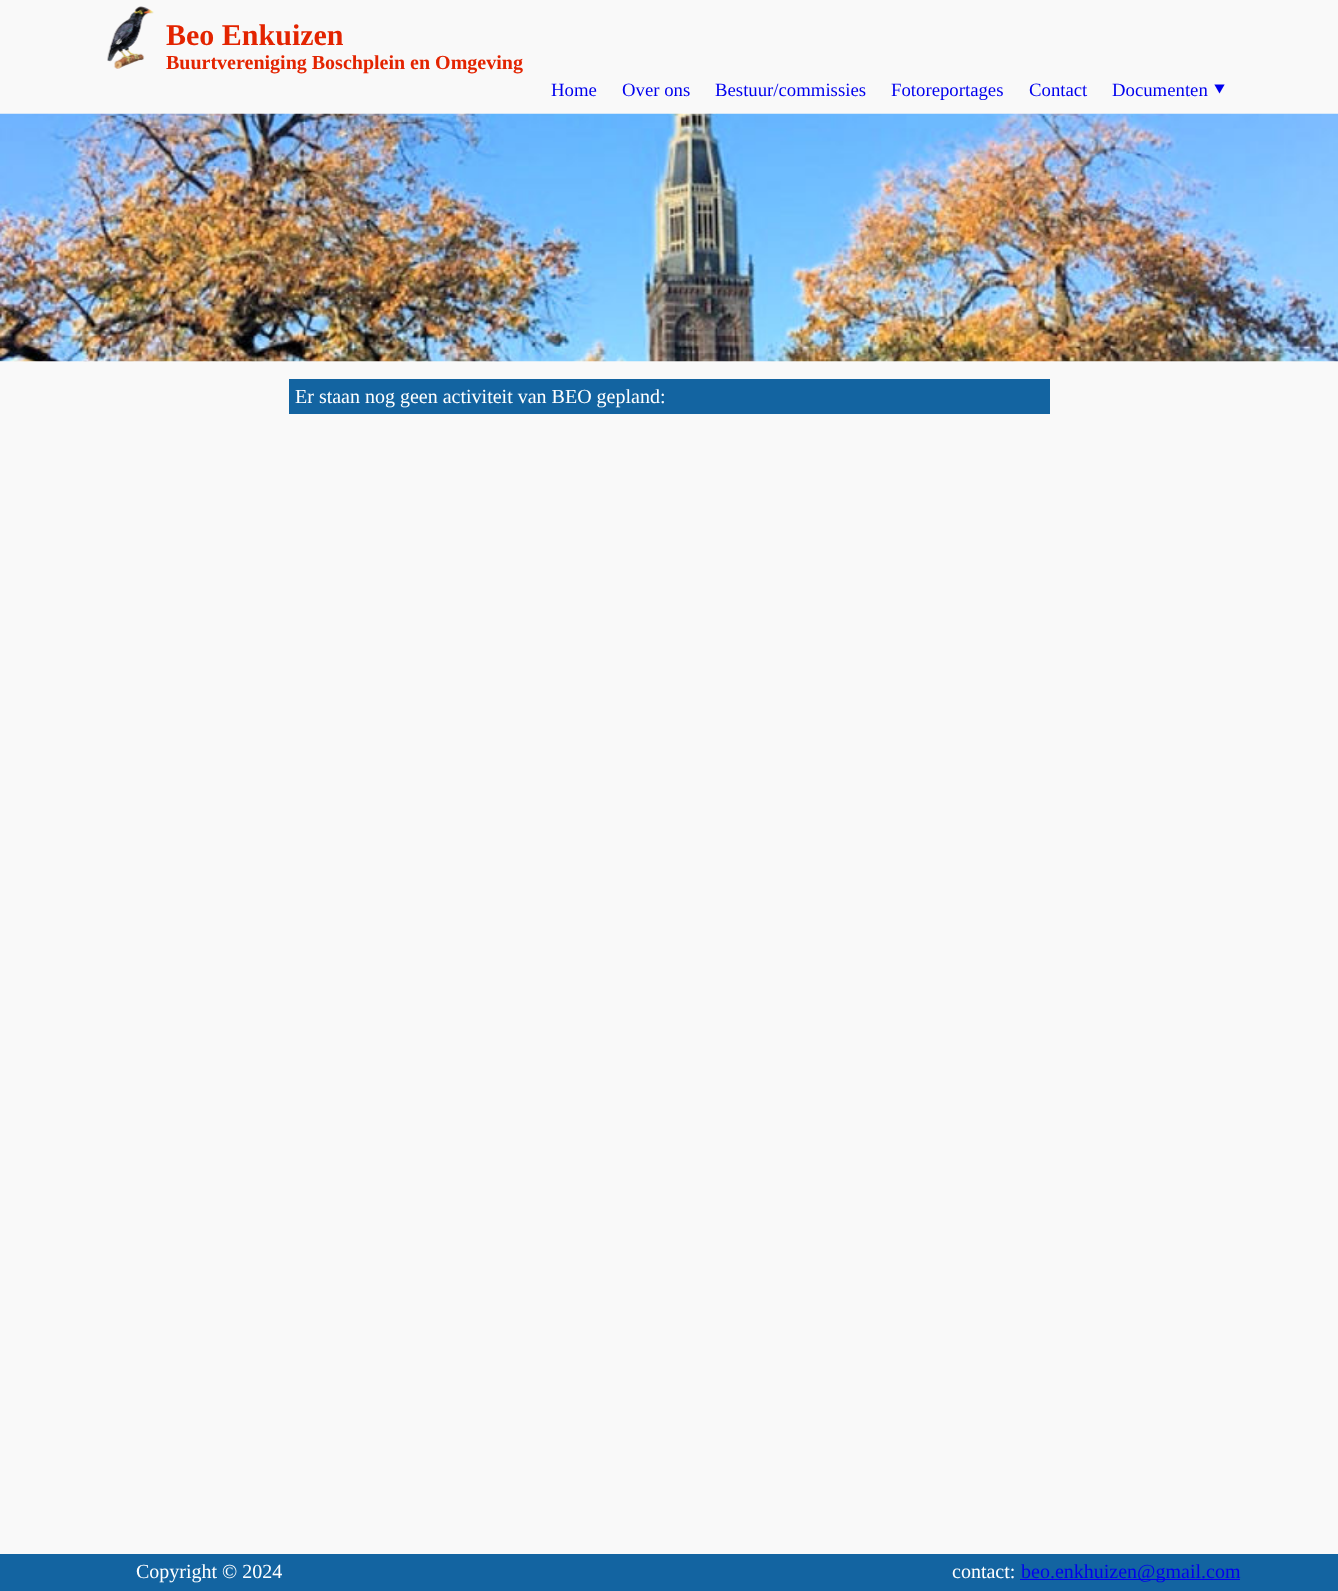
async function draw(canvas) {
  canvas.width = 1338;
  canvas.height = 1591;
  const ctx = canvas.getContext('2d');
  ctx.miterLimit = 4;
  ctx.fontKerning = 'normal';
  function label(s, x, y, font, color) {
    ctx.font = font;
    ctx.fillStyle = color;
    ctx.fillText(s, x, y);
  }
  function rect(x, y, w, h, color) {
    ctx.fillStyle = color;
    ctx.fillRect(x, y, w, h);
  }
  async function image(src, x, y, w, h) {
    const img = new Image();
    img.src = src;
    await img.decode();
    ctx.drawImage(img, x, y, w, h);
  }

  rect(0, 0, 1338, 1591, '#f9f9f9');
  await image('assets/img1.png', 107, 6, 47, 63);
  label('Beo Enkuizen', 166, 45, 'bold 30px Liberation Serif', '#e32400');
  label('Buurtvereniging Boschplein en Omgeving', 166, 69, 'bold 20px Liberation Serif', '#e32400');
  label('Home', 551, 96, '18.75px Liberation Serif', '#00e');
  label('Over ons', 622, 96, '18.75px Liberation Serif', '#00e');
  label('Bestuur/commissies', 715, 96, '18.75px Liberation Serif', '#00e');
  label('Fotoreportages', 891, 96, '18.75px Liberation Serif', '#00e');
  label('Contact', 1029, 96, '18.75px Liberation Serif', '#00e');
  label('Documenten', 1112, 96, '18.75px Liberation Serif', '#00e');
  label('⯆', 1212, 96, '18.75px FreeSans', '#00e');
  await image('assets/img2.png', 0, 113, 1338, 249);
  rect(289, 379, 761, 35, '#1364a1');
  label('Er staan nog geen activiteit van BEO gepland:', 295, 403, '20px Liberation Serif', '#fff');
  rect(0, 1554, 1338, 37, '#1364a1');
  label('Copyright © 2024', 136, 1578, '20px Liberation Serif', '#fff');
  label('contact:', 952, 1578, '20px Liberation Serif', '#fff');
  rect(1020, 1579, 220, 1, '#00e');
  label('beo.enkhuizen@gmail.com', 1021, 1578, '20px Liberation Serif', '#00e');
}

draw(document.querySelector('canvas'));
